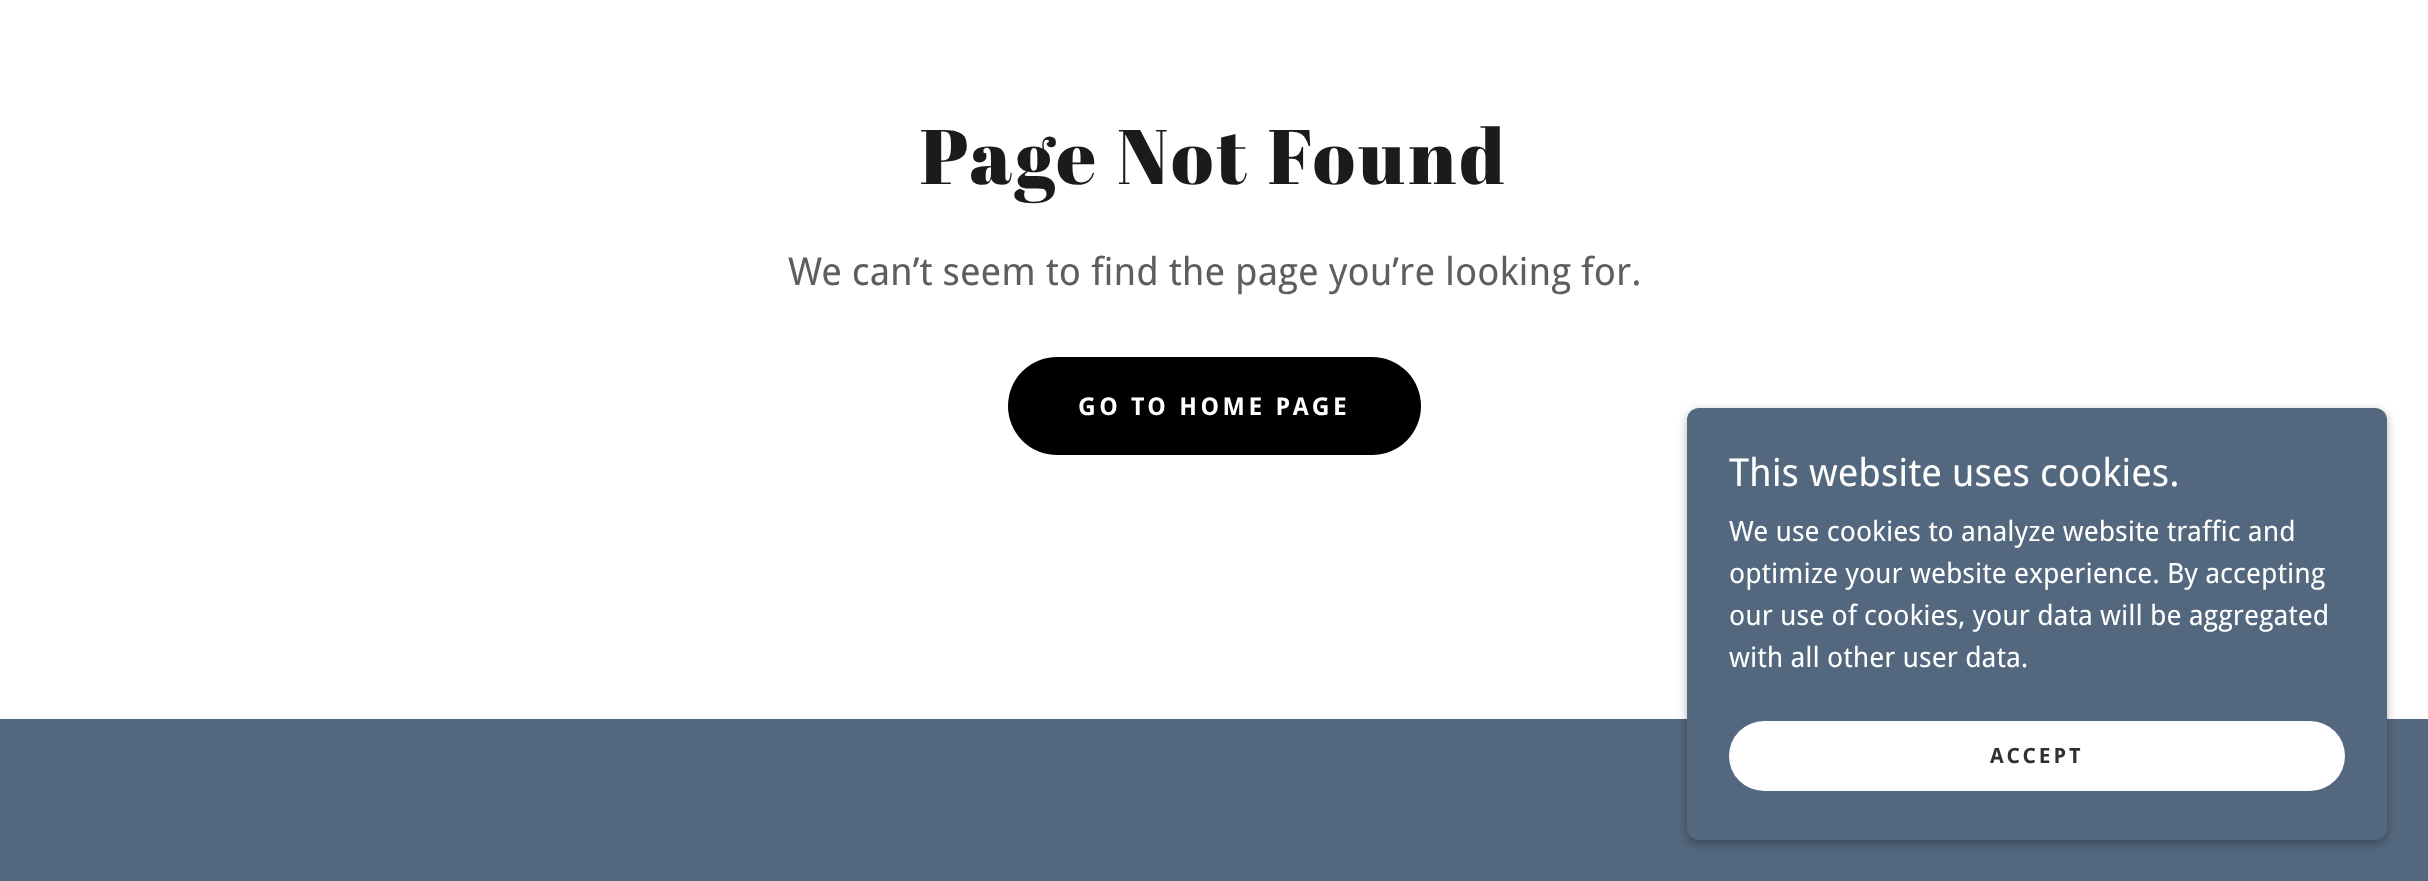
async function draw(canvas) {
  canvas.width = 2428;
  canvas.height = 881;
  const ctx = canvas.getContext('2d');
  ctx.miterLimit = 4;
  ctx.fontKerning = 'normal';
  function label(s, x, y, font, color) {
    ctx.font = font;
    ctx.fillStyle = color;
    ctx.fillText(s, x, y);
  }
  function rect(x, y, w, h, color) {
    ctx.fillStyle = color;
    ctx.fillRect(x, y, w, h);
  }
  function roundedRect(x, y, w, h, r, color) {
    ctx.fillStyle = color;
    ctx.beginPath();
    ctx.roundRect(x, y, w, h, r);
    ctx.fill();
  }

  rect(0, 0, 2428, 881, '#53687e');
  rect(0, 0, 2428, 719, '#fff');
  ctx.letterSpacing = '3.5px';
  label('Page Not Found', 920, 184, '77px Abril Fatface', '#1b1b1b');
  ctx.letterSpacing = '0px';
  label('We can’t seem to find the page you’re looking for.', 788, 285, '38.5px Droid Sans', '#5e5e5e');
  roundedRect(1008, 357, 413, 98, 49, '#000');
  ctx.letterSpacing = '3.5px';
  label('GO TO HOME PAGE', 1078, 415, 'bold 24.5px Droid Sans', '#fff');
  ctx.fillStyle = '#0000004d';
  ctx.filter = 'blur(5px)';
  ctx.beginPath();
  ctx.roundRect(1687, 411, 700, 433, 12);
  ctx.fill();
  ctx.filter = 'none';
  roundedRect(1687, 408, 700, 432, 12, '#53687e');
  ctx.letterSpacing = '0px';
  label('This website uses cookies.', 1729, 486, '38.5px Droid Sans', '#fff');
  label('We use cookies to analyze website traffic and', 1729, 541, '28px Droid Sans', '#fff');
  label('optimize your website experience. By accepting', 1729, 583, '28px Droid Sans', '#fff');
  label('our use of cookies, your data will be aggregated', 1729, 625, '28px Droid Sans', '#fff');
  label('with all other user data.', 1729, 667, '28px Droid Sans', '#fff');
  roundedRect(1729, 721, 616, 70, 35, '#fff');
  ctx.letterSpacing = '3px';
  label('ACCEPT', 1990, 763, 'bold 21px Droid Sans', '#303030');
}

draw(document.querySelector('canvas'));
